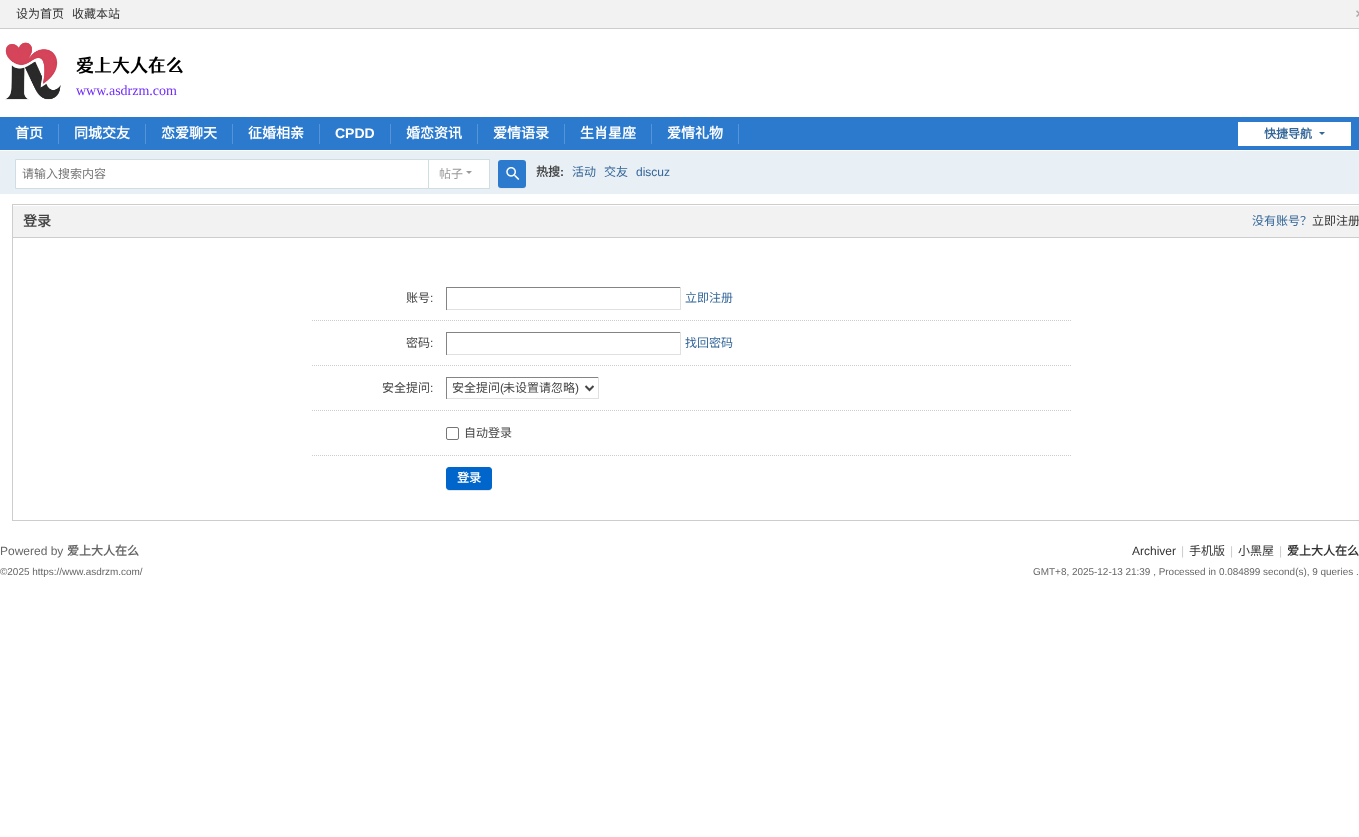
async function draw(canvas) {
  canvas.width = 1359;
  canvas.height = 837;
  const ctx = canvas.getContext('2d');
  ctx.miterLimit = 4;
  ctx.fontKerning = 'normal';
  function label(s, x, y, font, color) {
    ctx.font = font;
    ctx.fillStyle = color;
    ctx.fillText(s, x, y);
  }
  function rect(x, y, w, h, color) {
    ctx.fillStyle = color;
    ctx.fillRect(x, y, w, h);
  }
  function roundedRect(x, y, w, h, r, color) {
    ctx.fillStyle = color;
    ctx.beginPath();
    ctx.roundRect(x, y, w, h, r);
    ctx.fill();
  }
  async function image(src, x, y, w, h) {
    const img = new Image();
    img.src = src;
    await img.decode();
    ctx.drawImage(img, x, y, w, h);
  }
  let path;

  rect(0, 0, 1359, 837, '#fff');
  rect(0, 0, 1359, 28, '#f2f2f2');
  rect(0, 28, 1359, 1, '#cdcdcd');
  label('设为首页', 16, 18, '12px Noto Sans CJK SC', '#333');
  label('收藏本站', 72, 18, '12px Noto Sans CJK SC', '#333');
  await image('assets/img1.png', 1356, 10, 3, 7);
  await image('assets/img2.png', 5, 42, 56, 58);
  label('爱上大人在么', 76, 72, '18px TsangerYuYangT', '#000');
  label('www.asdrzm.com', 76, 95, '14px Liberation Serif', '#712cf9');
  rect(0, 117, 1359, 33, '#2b7acd');
  rect(58, 124, 1, 20, '#5595d7');
  label('首页', 15, 138, 'bold 14px Noto Sans CJK SC', '#fff');
  rect(145, 124, 1, 20, '#5595d7');
  label('同城交友', 74, 138, 'bold 14px Noto Sans CJK SC', '#fff');
  rect(232, 124, 1, 20, '#5595d7');
  label('恋爱聊天', 161, 138, 'bold 14px Noto Sans CJK SC', '#fff');
  rect(319, 124, 1, 20, '#5595d7');
  label('征婚相亲', 248, 138, 'bold 14px Noto Sans CJK SC', '#fff');
  rect(390, 124, 1, 20, '#5595d7');
  label('CPDD', 335, 138, 'bold 14px Liberation Sans', '#fff');
  rect(477, 124, 1, 20, '#5595d7');
  label('婚恋资讯', 406, 138, 'bold 14px Noto Sans CJK SC', '#fff');
  rect(564, 124, 1, 20, '#5595d7');
  label('爱情语录', 493, 138, 'bold 14px Noto Sans CJK SC', '#fff');
  rect(651, 124, 1, 20, '#5595d7');
  label('生肖星座', 580, 138, 'bold 14px Noto Sans CJK SC', '#fff');
  rect(738, 124, 1, 20, '#5595d7');
  label('爱情礼物', 667, 138, 'bold 14px Noto Sans CJK SC', '#fff');
  rect(1238, 122, 113, 24, '#fff');
  label('快捷导航', 1264, 138, 'bold 12px Noto Sans CJK SC', '#369');
  path = new Path2D('M1319 132H1325L1322 135Z');
  ctx.fill(path);
  rect(0, 151, 1359, 43, '#e8eff5');
  rect(427, 159, 63, 1, '#cfdee3');
  rect(489, 159, 1, 30, '#cfdee3');
  rect(427, 188, 63, 1, '#cfdee3');
  ctx.fillStyle = '#fff';
  ctx.beginPath();
  ctx.rect(15.5, 159.5, 413, 29);
  ctx.fill();
  ctx.strokeStyle = '#cfdee3';
  ctx.stroke();
  label('请输入搜索内容', 22, 178, '12px Noto Sans CJK SC', '#757575');
  rect(429, 160, 60, 28, '#fff');
  label('帖子', 439, 178, '12px Noto Sans CJK SC', '#999');
  path = new Path2D('M466 171H472L469 174Z');
  ctx.fill(path);
  ctx.fillStyle = '#e5e5e5';
  path = new Path2D('M498 185C498 189.5 501 189 504.5 189H519.5C523 189 526 189.5 526 185C526 186.5 524.5 188 523 188H501C499.5 188 498 186.5 498 185Z');
  ctx.fill(path);
  roundedRect(498, 160, 28, 28, 3, '#2b7acd');
  await image('assets/img3.png', 506, 167, 14, 13);
  label('热搜', 536, 176, 'bold 12px Noto Sans CJK SC', '#444');
  label(':', 560, 176, 'bold 12px Liberation Sans', '#444');
  label('活动', 572, 176, '12px Noto Sans CJK SC', '#369');
  label('交友', 604, 176, '12px Noto Sans CJK SC', '#369');
  label('discuz', 636, 176, '12px Liberation Sans', '#369');
  ctx.strokeStyle = '#cdcdcd';
  ctx.strokeRect(12.5, 204.5, 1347, 316);
  rect(13, 206, 1346, 31, '#f2f2f2');
  rect(13, 237, 1346, 1, '#cdcdcd');
  label('登录', 23, 226, 'bold 14px Noto Sans CJK SC', '#444');
  label('没有账号？', 1252, 225, '12px Noto Sans CJK SC', '#369');
  label('立即注册', 1312, 225, '12px Noto Sans CJK SC', '#333');
  path = new Path2D('M312 320.5H1072');
  ctx.setLineDash([1, 1]);
  ctx.stroke(path);
  label('账号', 406, 302, '12px Noto Sans CJK SC', '#444');
  label(':', 430, 302, '12px Liberation Sans', '#444');
  rect(446, 287, 235, 1, '#848484');
  rect(680, 287, 1, 23, '#e0e0e0');
  rect(446, 309, 235, 1, '#e0e0e0');
  rect(446, 287, 1, 23, '#848484');
  label('立即注册', 685, 302, '12px Noto Sans CJK SC', '#369');
  path = new Path2D('M312 365.5H1072');
  ctx.stroke(path);
  label('密码', 406, 347, '12px Noto Sans CJK SC', '#444');
  label(':', 430, 347, '12px Liberation Sans', '#444');
  rect(446, 332, 235, 1, '#848484');
  rect(680, 332, 1, 23, '#e0e0e0');
  rect(446, 354, 235, 1, '#e0e0e0');
  rect(446, 332, 1, 23, '#848484');
  label('找回密码', 685, 347, '12px Noto Sans CJK SC', '#369');
  path = new Path2D('M312 410.5H1072');
  ctx.stroke(path);
  label('安全提问', 382, 392, '12px Noto Sans CJK SC', '#444');
  label(':', 430, 392, '12px Liberation Sans', '#444');
  rect(446, 377, 153, 1, '#848484');
  rect(598, 377, 1, 22, '#e0e0e0');
  rect(446, 398, 153, 1, '#e0e0e0');
  rect(446, 377, 1, 22, '#848484');
  path = new Path2D('M585.5 386L589.5 390L593.5 386');
  ctx.strokeStyle = '#444';
  ctx.lineWidth = 2;
  ctx.setLineDash([]);
  ctx.stroke(path);
  label('安全提问', 452, 392, '12px Noto Sans CJK SC', '#444');
  label('(', 500, 392, '12px Liberation Sans', '#444');
  label('未设置请忽略', 503, 392, '12px Noto Sans CJK SC', '#444');
  label(')', 575, 392, '12px Liberation Sans', '#444');
  path = new Path2D('M312 455.5H1072');
  ctx.strokeStyle = '#cdcdcd';
  ctx.lineWidth = 1;
  ctx.setLineDash([1, 1]);
  ctx.stroke(path);
  ctx.beginPath();
  ctx.roundRect(446.5, 427.5, 12, 12, 1.5);
  ctx.strokeStyle = '#767676';
  ctx.setLineDash([]);
  ctx.stroke();
  label('自动登录', 464, 437, '12px Noto Sans CJK SC', '#444');
  ctx.fillStyle = '#e5e5e5';
  path = new Path2D('M446 487C446 492 451 491 456 491H482C487 491 492 492 492 487C492 489 491 490 489 490H449C447 490 446 489 446 487Z');
  ctx.fill(path);
  ctx.fillStyle = '#06c';
  ctx.beginPath();
  ctx.roundRect(446.5, 467.5, 45, 22, 2.5);
  ctx.fill();
  ctx.strokeStyle = '#06c';
  ctx.stroke();
  label('登录', 457, 482, 'bold 12px Noto Sans CJK SC', '#fff');
  label('Powered by', 0, 555, '12px Liberation Sans', '#666');
  label('爱上大人在么', 67, 555, 'bold 12px Noto Sans CJK SC', '#666');
  label('©2025 https://www.asdrzm.com/', 0, 575, '9.95px Liberation Sans', '#666');
  label('Archiver', 1132, 555, '12px Liberation Sans', '#333');
  label('|', 1181, 555, '12px Liberation Sans', '#ccc');
  label('手机版', 1189, 555, '12px Noto Sans CJK SC', '#333');
  label('|', 1230, 555, '12px Liberation Sans', '#ccc');
  label('小黑屋', 1238, 555, '12px Noto Sans CJK SC', '#333');
  label('|', 1279, 555, '12px Liberation Sans', '#ccc');
  label('爱上大人在么', 1287, 555, 'bold 12px Noto Sans CJK SC', '#333');
  label('GMT+8, 2025-12-13 21:39 , Processed in 0.084899 second(s), 9 queries .', 1033, 575, '9.95px Liberation Sans', '#666');
}

draw(document.querySelector('canvas'));
